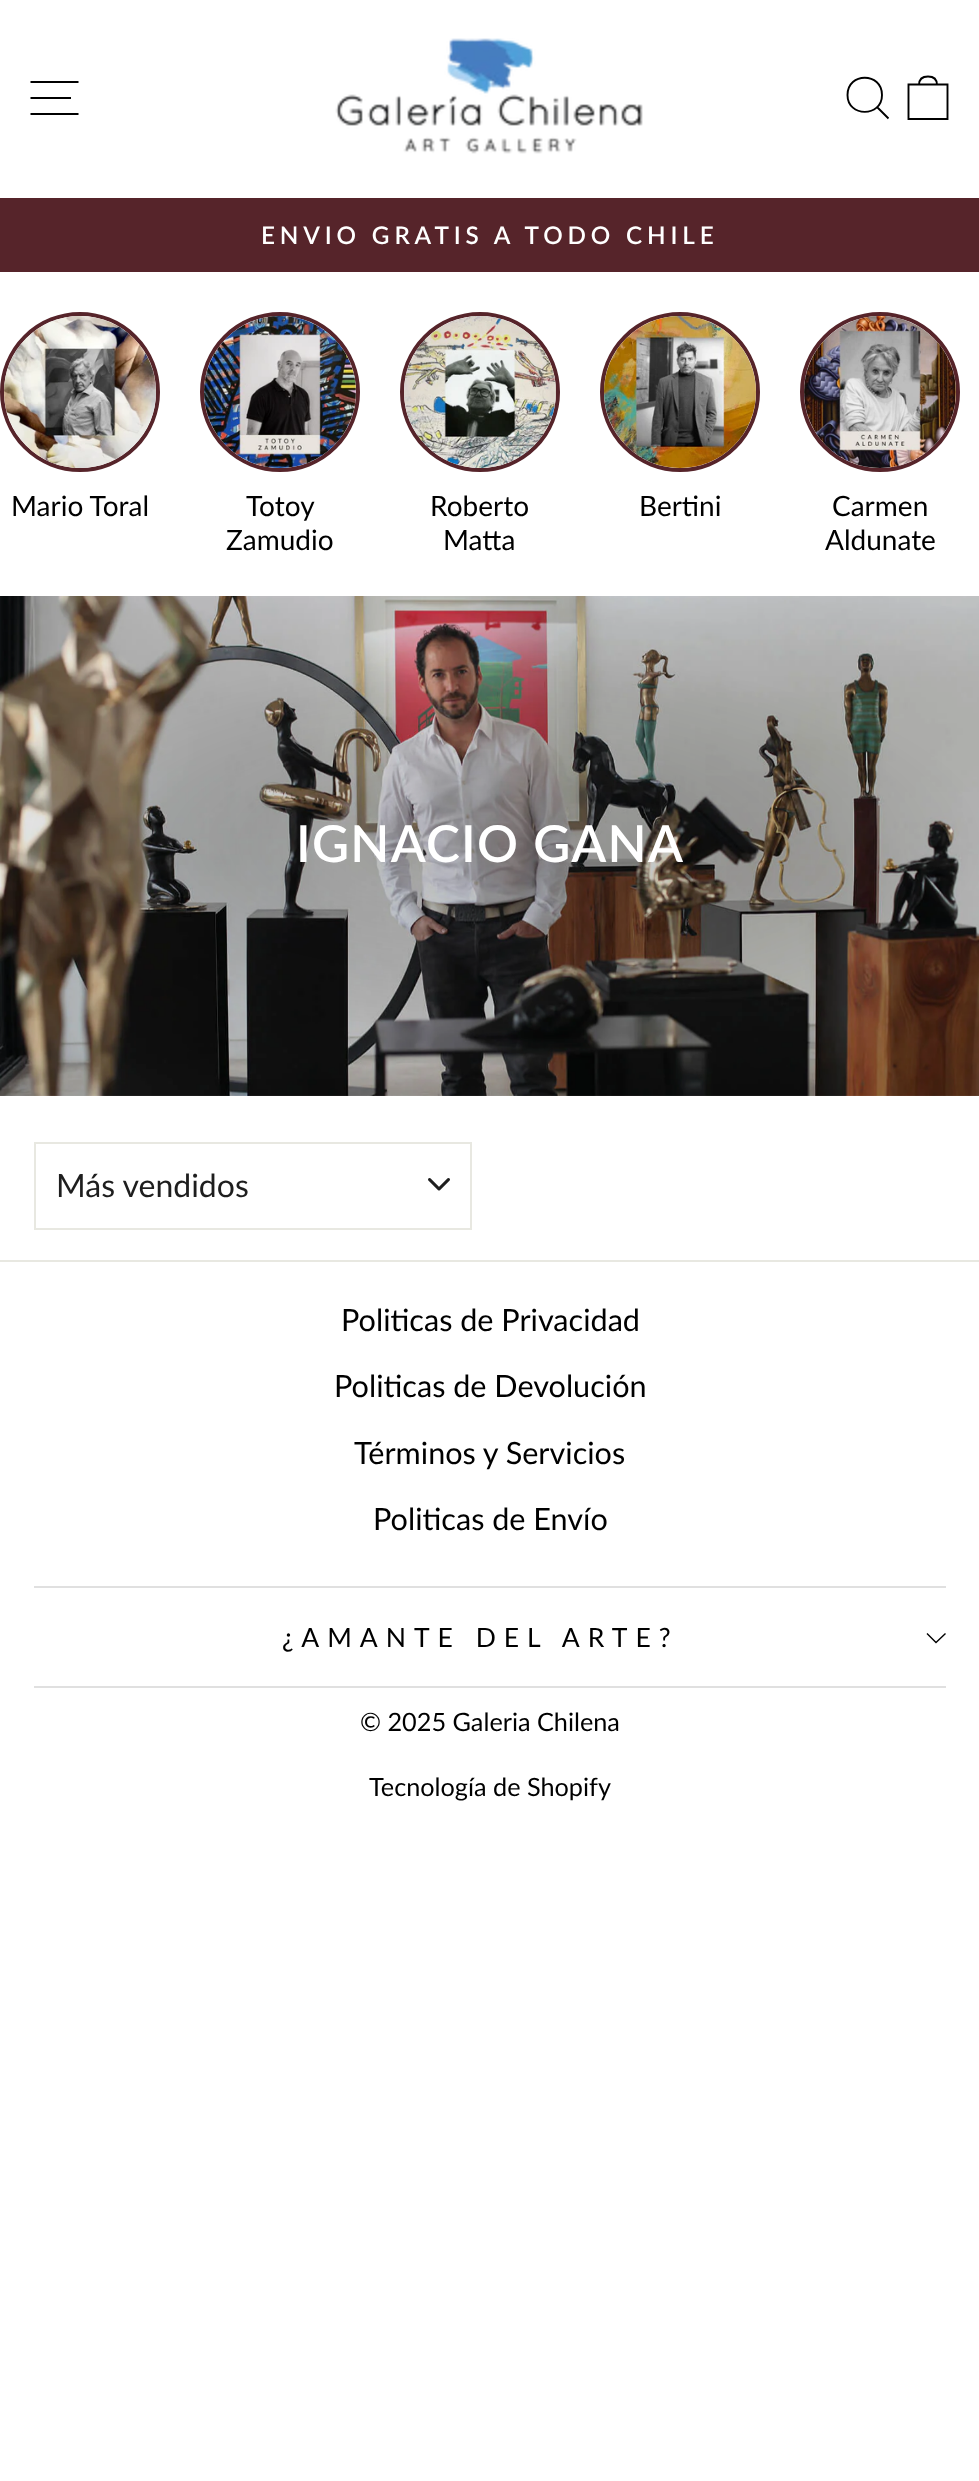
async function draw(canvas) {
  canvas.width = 979;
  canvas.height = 2481;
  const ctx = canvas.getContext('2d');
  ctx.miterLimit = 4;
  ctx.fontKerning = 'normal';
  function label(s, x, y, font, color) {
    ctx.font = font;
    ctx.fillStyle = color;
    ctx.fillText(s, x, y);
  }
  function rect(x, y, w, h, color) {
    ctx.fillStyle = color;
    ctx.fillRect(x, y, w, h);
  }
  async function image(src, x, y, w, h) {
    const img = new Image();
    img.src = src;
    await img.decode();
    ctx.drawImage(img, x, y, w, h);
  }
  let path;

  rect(0, 0, 979, 2481, '#fff');
  path = new Path2D('M30.5 82H78.5M30.5 98H71M30.5 114H78.5');
  ctx.strokeStyle = '#000';
  ctx.lineWidth = 1.9;
  ctx.stroke(path);
  await image('assets/img1.png', 335, 38, 308, 116);
  path = new Path2D('M882 95C882 117.5 847.5 117.5 847.5 95C847.5 72 882 72 882 95ZM888.5 118.5L877.5 107.5');
  ctx.stroke(path);
  path = new Path2D('M908.5 84.5H947.5V119H908.5ZM919 85C919 78 923 76.5 928 76.5C933 76.5 937 78 937 85');
  ctx.stroke(path);
  rect(0, 198, 979, 74, '#56242a');
  ctx.letterSpacing = '4.85px';
  label('ENVIO GRATIS A TODO CHILE', 261, 244, '600 24.25px Lato', '#fff');
  ctx.beginPath();
  ctx.arc(80, 392, 78, 0, 2 * Math.PI);
  ctx.strokeStyle = '#56242a';
  ctx.lineWidth = 4;
  ctx.stroke();
  await image('assets/img2.png', 4, 316, 152, 152);
  ctx.letterSpacing = '0px';
  label('Mario Toral', 11, 516, '28px Lato', '#000');
  ctx.beginPath();
  ctx.arc(280, 392, 78, 0, 2 * Math.PI);
  ctx.stroke();
  await image('assets/img3.png', 204, 316, 152, 152);
  label('Totoy', 246, 516, '28px Lato', '#000');
  label('Zamudio', 226, 550, '28px Lato', '#000');
  ctx.beginPath();
  ctx.arc(480, 392, 78, 0, 2 * Math.PI);
  ctx.stroke();
  await image('assets/img4.png', 404, 316, 152, 152);
  label('Roberto', 430, 516, '28px Lato', '#000');
  label('Matta', 443, 550, '28px Lato', '#000');
  ctx.beginPath();
  ctx.arc(680, 392, 78, 0, 2 * Math.PI);
  ctx.stroke();
  await image('assets/img5.png', 604, 316, 152, 152);
  label('Bertini', 639, 516, '28px Lato', '#000');
  ctx.beginPath();
  ctx.arc(880, 392, 78, 0, 2 * Math.PI);
  ctx.stroke();
  await image('assets/img6.png', 804, 316, 152, 152);
  label('Carmen', 832, 516, '28px Lato', '#000');
  label('Aldunate', 825, 550, '28px Lato', '#000');
  await image('assets/img7.png', 0, 596, 979, 500);
  ctx.letterSpacing = '1.25px';
  label('IGNACIO GANA', 296, 862, '600 51px Lato', '#fff');
  await image('assets/img8.png', 428, 1178, 22, 13);
  ctx.strokeStyle = '#e8e8e1';
  ctx.lineWidth = 2;
  ctx.strokeRect(35, 1143, 436, 86);
  ctx.letterSpacing = '0px';
  label('Más vendidos', 56, 1197, '32px Lato', '#1e1e1e');
  rect(0, 1260, 979, 2, '#e8e8e1');
  label('Politicas de Privacidad', 341, 1331, '30.6px Lato', '#000');
  label('Politicas de Devolución', 334, 1397, '30.6px Lato', '#000');
  label('Términos y Servicios', 354, 1464, '30.6px Lato', '#000');
  label('Politicas de Envío', 373, 1530, '30.6px Lato', '#000');
  rect(34, 1586, 912, 2, '#e0e0e0');
  ctx.letterSpacing = '8px';
  label('¿AMANTE DEL ARTE?', 282, 1647, '26.5px Lato', '#000');
  path = new Path2D('M927 1633.5L936 1642.5L945.5 1633.5');
  ctx.strokeStyle = '#000';
  ctx.lineWidth = 1.4;
  ctx.stroke(path);
  rect(34, 1686, 912, 2, '#e0e0e0');
  ctx.letterSpacing = '0px';
  label('© 2025 Galeria Chilena', 360, 1731, '25.25px Lato', '#000');
  label('Tecnología de Shopify', 369, 1796, '25.25px Lato', '#000');
}

draw(document.querySelector('canvas'));
